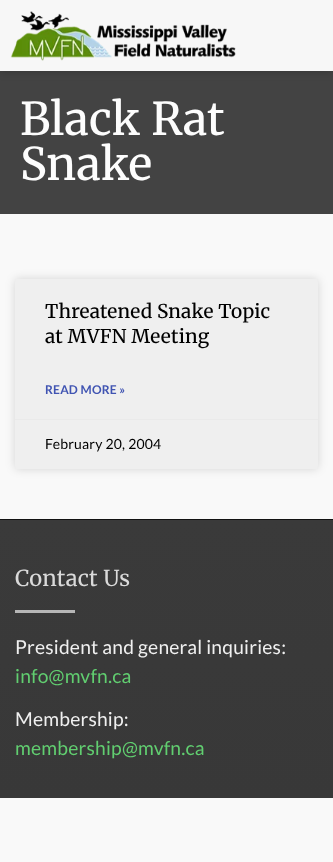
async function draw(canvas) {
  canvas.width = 333;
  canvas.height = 862;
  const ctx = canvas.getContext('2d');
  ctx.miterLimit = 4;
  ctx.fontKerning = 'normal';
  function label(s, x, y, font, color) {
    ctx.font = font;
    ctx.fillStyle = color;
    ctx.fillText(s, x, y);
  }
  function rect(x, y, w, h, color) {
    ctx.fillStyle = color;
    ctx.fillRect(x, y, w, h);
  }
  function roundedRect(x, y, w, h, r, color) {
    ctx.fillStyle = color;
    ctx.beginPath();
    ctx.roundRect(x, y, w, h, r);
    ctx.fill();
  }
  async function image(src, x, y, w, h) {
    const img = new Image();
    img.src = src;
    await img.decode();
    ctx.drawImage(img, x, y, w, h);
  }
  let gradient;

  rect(0, 0, 333, 862, '#f9f9f9');
  rect(0, 71, 333, 143, '#434343');
  ctx.fillStyle = '#0000003b';
  ctx.filter = 'blur(5px)';
  ctx.beginPath();
  ctx.rect(0, 0, 333, 71);
  ctx.fill();
  ctx.filter = 'none';
  rect(0, 0, 333, 71, '#f7f7f7');
  await image('assets/img1.png', 10, 11, 226, 50);
  ctx.letterSpacing = '0.2px';
  label('Black Rat', 20, 135, '500 45px Merriweather', '#fdfdfd');
  label('Snake', 20, 180, '500 45px Merriweather', '#fdfdfd');
  ctx.fillStyle = '#00000026';
  ctx.filter = 'blur(5px)';
  ctx.beginPath();
  ctx.roundRect(15, 279, 303, 190, 3);
  ctx.fill();
  ctx.filter = 'none';
  roundedRect(15, 279, 303, 190, 3, '#efefef');
  label('Threatened Snake Topic', 45, 318, '500 19px Merriweather', '#000');
  label('at MVFN Meeting', 45, 343, '500 19px Merriweather', '#000');
  label('READ MORE »', 45, 394, 'bold 12px Lato', '#4054b2');
  rect(15, 419, 303, 1, '#eaeaea');
  label('February 20, 2004', 45, 449, '14px Lato', '#000');
  gradient = ctx.createLinearGradient(167, 798, 166, 520);
  gradient.addColorStop(0, '#383838');
  gradient.addColorStop(1, '#3a3a3a');
  ctx.fillStyle = gradient;
  ctx.fillRect(0, 520, 333, 278);
  rect(0, 519, 333, 1, '#121212');
  label('Contact Us', 15, 586, '22px Merriweather', '#dadada');
  rect(15, 610, 60, 3, '#b6b6b6');
  label('President and general inquiries:', 15, 654, '19.25px Lato', '#f0f0f0');
  label('info@mvfn.ca', 15, 683, '19.25px Lato', '#61ce70');
  label('Membership:', 15, 726, '19.25px Lato', '#f0f0f0');
  label('membership@mvfn.ca', 15, 755, '19.25px Lato', '#61ce70');
}

draw(document.querySelector('canvas'));
